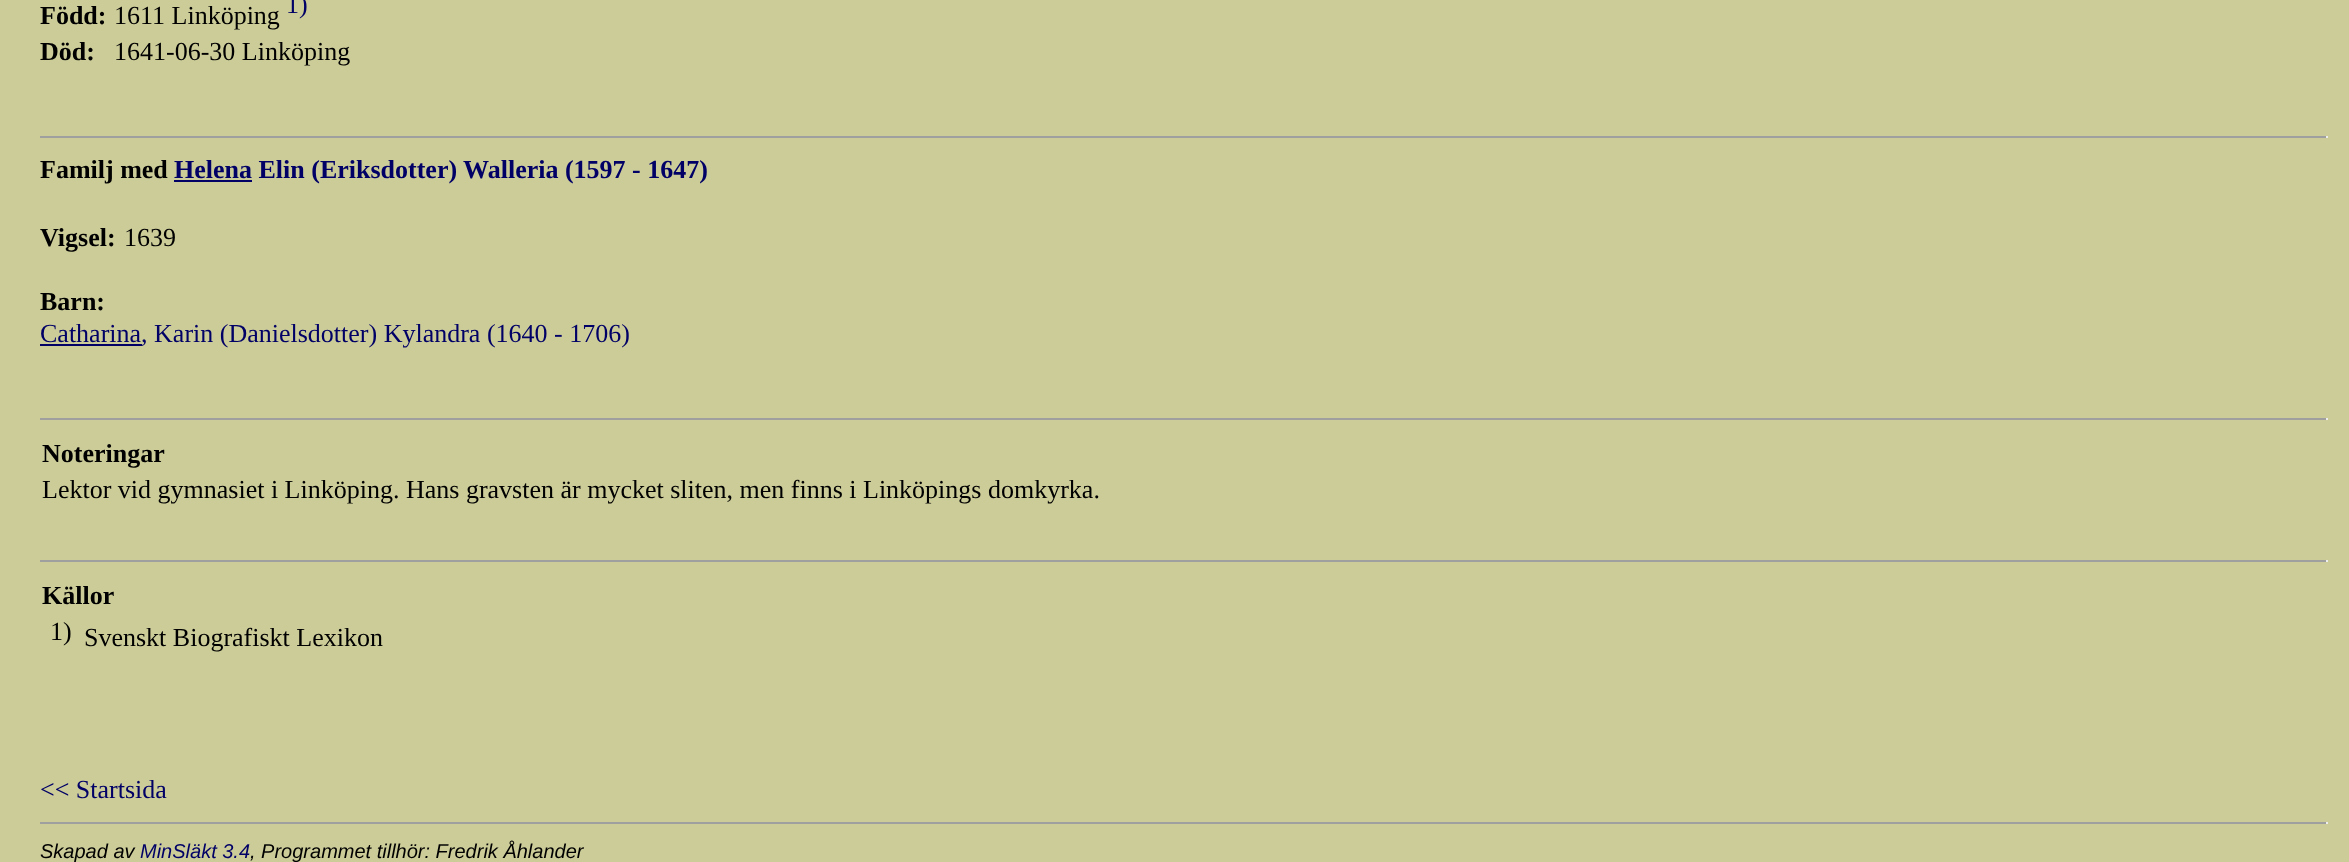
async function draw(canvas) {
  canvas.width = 2349;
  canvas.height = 862;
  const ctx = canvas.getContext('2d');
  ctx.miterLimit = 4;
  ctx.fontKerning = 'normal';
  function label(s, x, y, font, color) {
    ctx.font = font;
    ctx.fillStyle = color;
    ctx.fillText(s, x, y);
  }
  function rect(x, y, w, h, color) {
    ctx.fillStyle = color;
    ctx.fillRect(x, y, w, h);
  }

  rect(0, 0, 2349, 862, '#cc9');
  label('Född:', 40, 24, 'bold 26px Liberation Serif', '#000');
  label('1611 Linköping', 114, 24, '26px Liberation Serif', '#000');
  label('1)', 286, 13, '26px Liberation Serif', '#006');
  label('Död:', 40, 60, 'bold 26px Liberation Serif', '#000');
  label('1641-06-30 Linköping', 114, 60, '26px Liberation Serif', '#000');
  rect(40, 136, 2288, 2, '#9f9f9f');
  rect(2326, 136, 2, 2, '#eee');
  label('Familj med', 40, 178, 'bold 26px Liberation Serif', '#000');
  rect(174, 180, 78, 2, '#006');
  label('Helena Elin (Eriksdotter) Walleria (1597 - 1647)', 174, 178, 'bold 26px Liberation Serif', '#006');
  label('Vigsel:', 40, 246, 'bold 26px Liberation Serif', '#000');
  label('1639', 124, 246, '26px Liberation Serif', '#000');
  label('Barn:', 40, 310, 'bold 26px Liberation Serif', '#000');
  rect(40, 344, 102, 2, '#006');
  label('Catharina, Karin (Danielsdotter) Kylandra (1640 - 1706)', 40, 342, '26px Liberation Serif', '#006');
  rect(40, 418, 2288, 2, '#9f9f9f');
  rect(2326, 418, 2, 2, '#eee');
  label('Noteringar', 42, 462, 'bold 26px Liberation Serif', '#000');
  label('Lektor vid gymnasiet i Linköping. Hans gravsten är mycket sliten, men finns i Linköpings domkyrka.', 42, 498, '26px Liberation Serif', '#000');
  rect(40, 560, 2288, 2, '#9f9f9f');
  rect(2326, 560, 2, 2, '#eee');
  label('Källor', 42, 604, 'bold 26px Liberation Serif', '#000');
  label('1)', 50, 640, '26px Liberation Serif', '#000');
  label('Svenskt Biografiskt Lexikon', 84, 646, '26px Liberation Serif', '#000');
  label('<< Startsida', 40, 798, '26px Liberation Serif', '#006');
  rect(40, 822, 2288, 2, '#9f9f9f');
  rect(2326, 822, 2, 2, '#eee');
  label('Skapad av', 40, 858, 'italic 20px Liberation Sans', '#000');
  label('MinSläkt 3.4', 140, 858, 'italic 20px Liberation Sans', '#006');
  label(', Programmet tillhör: Fredrik Åhlander', 250, 858, 'italic 20px Liberation Sans', '#000');
}

draw(document.querySelector('canvas'));
